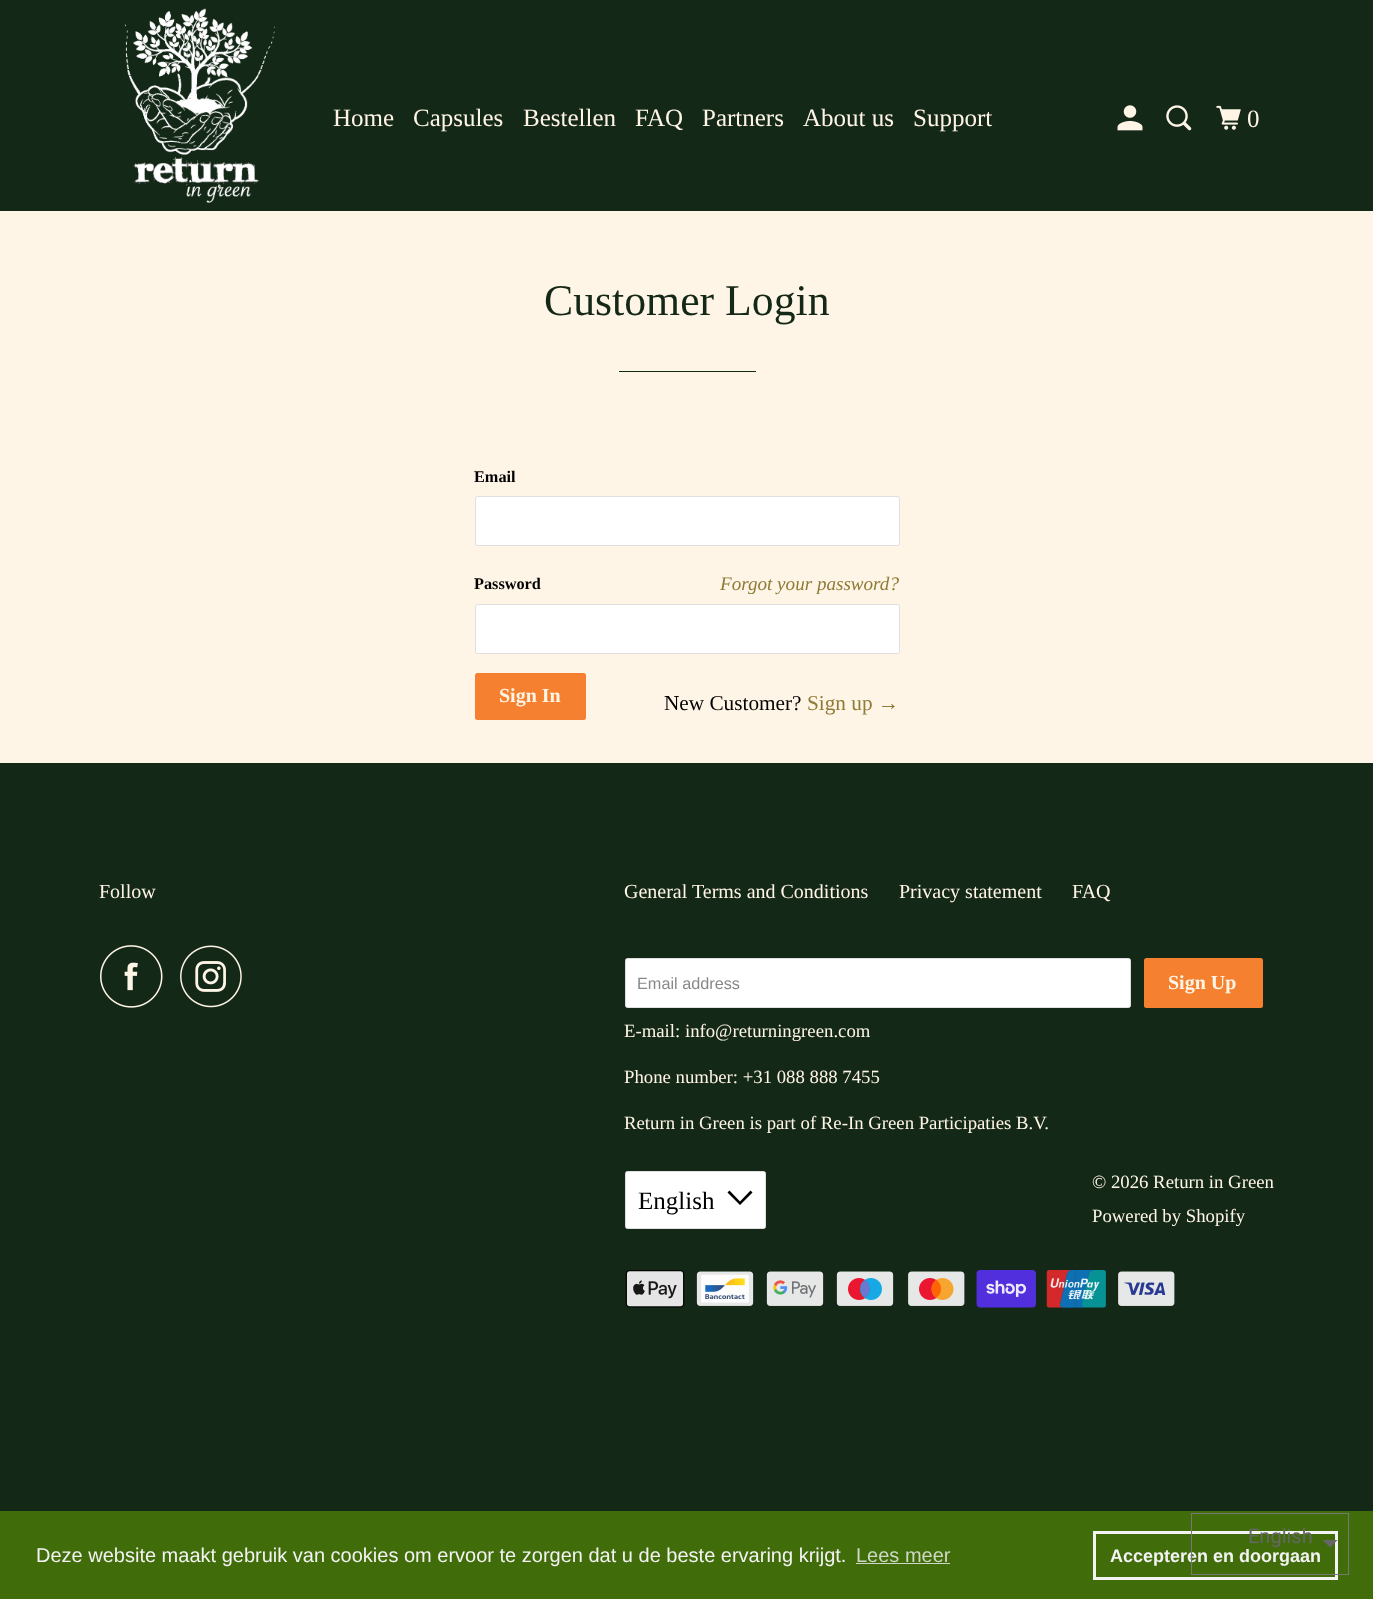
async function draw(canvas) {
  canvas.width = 1373;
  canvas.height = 1599;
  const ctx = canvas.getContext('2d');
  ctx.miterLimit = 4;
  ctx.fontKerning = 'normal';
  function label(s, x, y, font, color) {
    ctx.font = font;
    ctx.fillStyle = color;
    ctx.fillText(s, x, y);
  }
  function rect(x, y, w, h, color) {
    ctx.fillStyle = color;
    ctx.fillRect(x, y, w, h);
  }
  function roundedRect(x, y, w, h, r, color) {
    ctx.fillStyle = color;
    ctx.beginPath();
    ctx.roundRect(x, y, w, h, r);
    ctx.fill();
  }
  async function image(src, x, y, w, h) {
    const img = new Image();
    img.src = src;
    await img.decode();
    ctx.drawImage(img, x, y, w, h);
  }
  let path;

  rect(0, 0, 1373, 1599, '#142817');
  rect(0, 211, 1373, 552, '#fff5e6');
  await image('assets/img1.png', 124, 8, 151, 195);
  label('Home', 333, 126, '25px Liberation Serif', '#fff5e6');
  label('Capsules', 413, 126, '25px Liberation Serif', '#fff5e6');
  label('Bestellen', 523, 126, '25px Liberation Serif', '#fff5e6');
  label('FAQ', 635, 126, '25px Liberation Serif', '#fff5e6');
  label('Partners', 702, 126, '25px Liberation Serif', '#fff5e6');
  label('About us', 803, 126, '25px Liberation Serif', '#fff5e6');
  label('Support', 913, 126, '25px Liberation Serif', '#fff5e6');
  await image('assets/img2.png', 1117, 105, 26, 26);
  await image('assets/img3.png', 1166, 105, 26, 26);
  await image('assets/img4.png', 1216, 105, 25, 25);
  label('0', 1247, 127, '25px Liberation Serif', '#fff5e6');
  label('Customer Login', 544, 315, '43.75px Liberation Serif', '#142817');
  rect(619, 371, 137, 1, '#142817');
  label('Email', 474, 482, 'bold 16.25px Liberation Serif', '#000');
  ctx.fillStyle = '#fff';
  ctx.beginPath();
  ctx.roundRect(475.5, 496.5, 424, 49, 2);
  ctx.fill();
  ctx.strokeStyle = '#dfdfdf';
  ctx.stroke();
  label('Password', 474, 589, 'bold 16.25px Liberation Serif', '#000');
  label('Forgot your password?', 720, 590, 'italic 19.1px Liberation Serif', '#8f7a36');
  ctx.fillStyle = '#fff';
  ctx.beginPath();
  ctx.roundRect(475.5, 604.5, 424, 49, 2);
  ctx.fill();
  ctx.stroke();
  roundedRect(475, 673, 111, 47, 2.5, '#f48030');
  label('Sign In', 499, 702, 'bold 20px Liberation Serif', '#fff5e6');
  label('New Customer?', 664, 710, '21.25px Liberation Serif', '#000');
  label('Sign up →', 807, 710, '21.25px Liberation Serif', '#8f7a36');
  label('Follow', 99, 898, '20px Liberation Serif', '#fff5e6');
  await image('assets/img5.png', 100, 945, 63, 63);
  await image('assets/img6.png', 180, 945, 62, 63);
  label('General Terms and Conditions', 624, 898, '20px Liberation Serif', '#fff5e6');
  label('Privacy statement', 899, 898, '20px Liberation Serif', '#fff5e6');
  label('FAQ', 1072, 898, '20px Liberation Serif', '#fff5e6');
  ctx.fillStyle = '#fff';
  ctx.beginPath();
  ctx.roundRect(625.5, 958.5, 505, 49, 2);
  ctx.fill();
  ctx.stroke();
  label('Email address', 637, 989, '16.25px Liberation Sans', '#888');
  roundedRect(1144, 958, 119, 50, 2.5, '#f48030');
  label('Sign Up', 1168, 989, 'bold 20px Liberation Serif', '#fff5e6');
  label('E-mail: info@returningreen.com', 624, 1037, '18.75px Liberation Serif', '#fff5e6');
  label('Phone number: +31 088 888 7455', 624, 1083, '18.75px Liberation Serif', '#fff5e6');
  label('Return in Green is part of Re-In Green Participaties B.V.', 624, 1129, '18.75px Liberation Serif', '#fff5e6');
  ctx.fillStyle = '#fff';
  ctx.beginPath();
  ctx.roundRect(625.5, 1171.5, 140, 57, 2);
  ctx.fill();
  ctx.stroke();
  label('English', 638, 1209, '25px Liberation Serif', '#000');
  path = new Path2D('M734 1199L727.5 1192.5L729.5 1190.5L740 1201.5L750.5 1190.5L752.5 1192.5L740 1205Z');
  ctx.fill(path);
  label('© 2026 Return in Green', 1092, 1188, '18.75px Liberation Serif', '#fff5e6');
  label('Powered by Shopify', 1092, 1222, '18.75px Liberation Serif', '#fff5e6');
  await image('assets/img7.png', 625, 1270, 60, 38);
  await image('assets/img8.png', 696, 1271, 58, 35);
  await image('assets/img9.png', 766, 1271, 58, 35);
  await image('assets/img10.png', 836, 1271, 58, 35);
  await image('assets/img11.png', 908, 1271, 57, 35);
  await image('assets/img12.png', 976, 1270, 60, 38);
  await image('assets/img13.png', 1046, 1270, 60, 38);
  await image('assets/img14.png', 1118, 1271, 57, 35);
  rect(0, 1511, 1373, 88, '#406c09');
  ctx.strokeStyle = '#f3f3f3';
  ctx.lineWidth = 3;
  ctx.strokeRect(1094.5, 1532.5, 242, 46);
  label('Accepteren en doorgaan', 1110, 1562, 'bold 18px Liberation Sans', '#f3f3f3');
  ctx.strokeStyle = '#777';
  ctx.lineWidth = 1;
  ctx.strokeRect(1191.5, 1513.5, 157, 61);
  label('English', 1248, 1543, '20px Roboto', '#666');
  path = new Path2D('M1322.5 1540L1330 1547.5L1337.5 1540Z');
  ctx.fill(path);
  label('Deze website maakt gebruik van cookies om ervoor te zorgen dat u de beste ervaring krijgt.', 36, 1562, '20px Liberation Sans', '#f3f3f3');
  label('Lees meer', 856, 1562, '20px Liberation Sans', '#cfd8c4');
  rect(856, 1563, 94, 1, '#cfd8c4');
}

draw(document.querySelector('canvas'));
